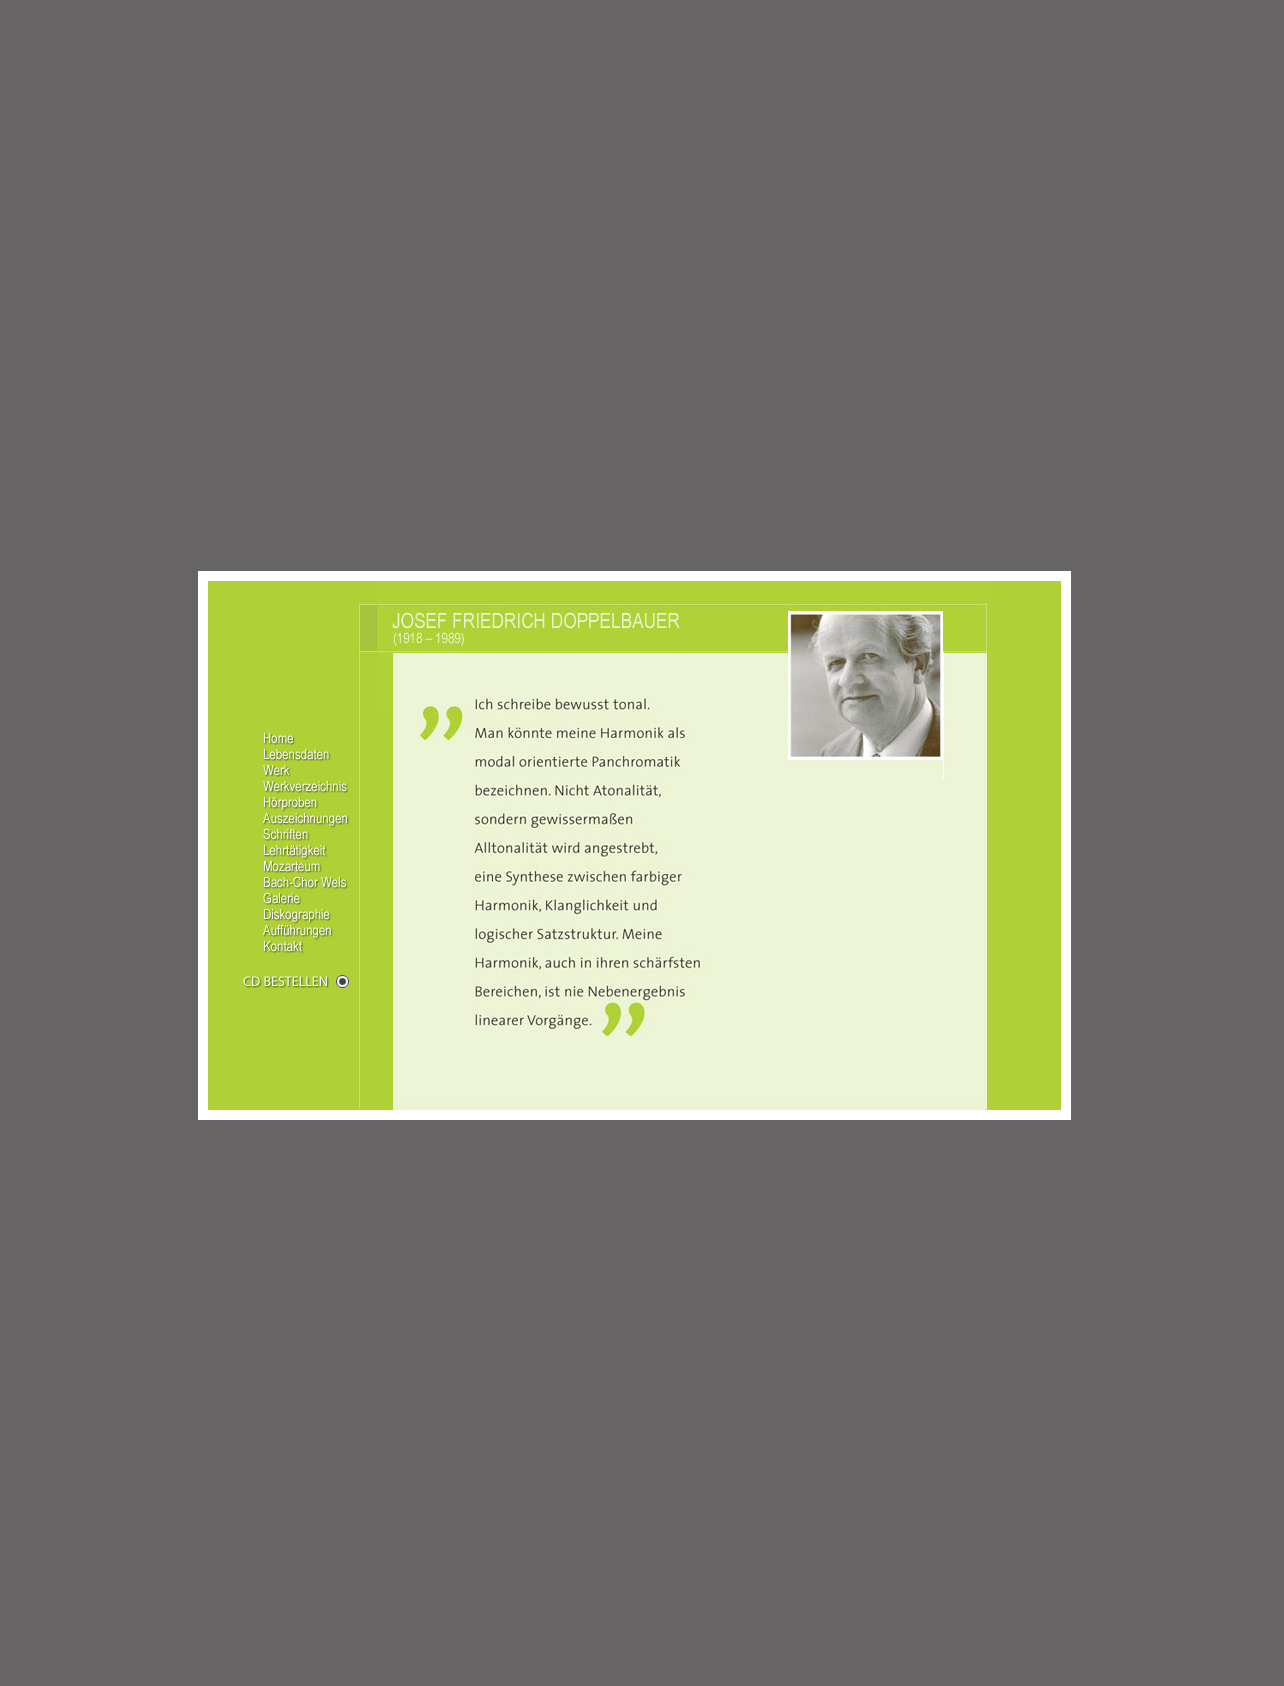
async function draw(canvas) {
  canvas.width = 1284;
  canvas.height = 1686;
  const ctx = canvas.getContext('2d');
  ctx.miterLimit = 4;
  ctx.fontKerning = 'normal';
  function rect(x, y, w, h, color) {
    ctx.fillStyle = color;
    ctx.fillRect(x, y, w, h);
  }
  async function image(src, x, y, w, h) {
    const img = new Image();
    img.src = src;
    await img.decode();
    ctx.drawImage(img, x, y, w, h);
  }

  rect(0, 0, 1284, 1686, '#666464');
  rect(198, 571, 9, 549, '#fff');
  await image('assets/img1.png', 207, 571, 170, 12);
  await image('assets/img2.png', 377, 571, 507, 12);
  await image('assets/img3.png', 884, 571, 103, 12);
  await image('assets/img4.png', 987, 571, 84, 12);
  await image('assets/img5.png', 207, 583, 170, 105);
  await image('assets/img6.png', 377, 583, 507, 105);
  await image('assets/img7.png', 884, 583, 103, 105);
  await image('assets/img8.png', 987, 583, 84, 105);
  await image('assets/img9.png', 207, 688, 170, 23);
  await image('assets/img10.png', 377, 688, 507, 23);
  await image('assets/img11.png', 884, 688, 103, 23);
  await image('assets/img12.png', 987, 688, 84, 23);
  await image('assets/img13.png', 207, 711, 170, 386);
  await image('assets/img14.png', 207, 733, 88, 15);
  await image('assets/img15.png', 207, 749, 124, 15);
  await image('assets/img16.png', 207, 765, 84, 15);
  await image('assets/img17.png', 207, 781, 142, 15);
  await image('assets/img18.png', 207, 797, 112, 15);
  await image('assets/img19.png', 207, 813, 142, 15);
  await image('assets/img20.png', 207, 828, 103, 16);
  await image('assets/img21.png', 207, 845, 121, 15);
  await image('assets/img22.png', 207, 861, 115, 15);
  await image('assets/img23.png', 207, 876, 141, 16);
  await image('assets/img24.png', 207, 892, 95, 16);
  await image('assets/img25.png', 207, 909, 125, 15);
  await image('assets/img26.png', 207, 925, 126, 15);
  await image('assets/img27.png', 207, 941, 97, 15);
  await image('assets/img28.png', 207, 975, 142, 15);
  await image('assets/img29.png', 377, 711, 16, 386);
  await image('assets/img30.png', 393, 711, 594, 386);
  await image('assets/img31.png', 987, 711, 84, 386);
  await image('assets/img32.png', 207, 1097, 170, 23);
  await image('assets/img33.png', 377, 1097, 507, 23);
  await image('assets/img34.png', 884, 1097, 103, 23);
  await image('assets/img35.png', 987, 1097, 84, 23);
}

draw(document.querySelector('canvas'));
